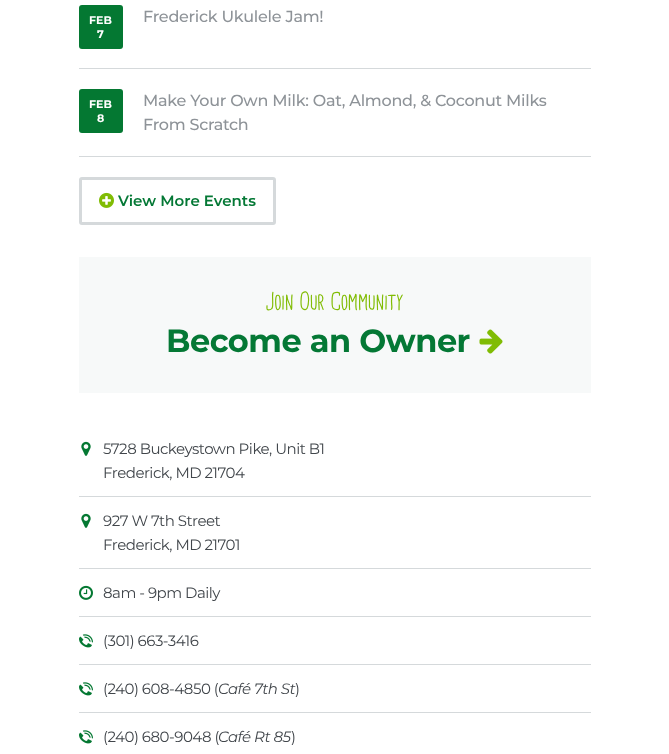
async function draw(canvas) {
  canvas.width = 669;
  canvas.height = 754;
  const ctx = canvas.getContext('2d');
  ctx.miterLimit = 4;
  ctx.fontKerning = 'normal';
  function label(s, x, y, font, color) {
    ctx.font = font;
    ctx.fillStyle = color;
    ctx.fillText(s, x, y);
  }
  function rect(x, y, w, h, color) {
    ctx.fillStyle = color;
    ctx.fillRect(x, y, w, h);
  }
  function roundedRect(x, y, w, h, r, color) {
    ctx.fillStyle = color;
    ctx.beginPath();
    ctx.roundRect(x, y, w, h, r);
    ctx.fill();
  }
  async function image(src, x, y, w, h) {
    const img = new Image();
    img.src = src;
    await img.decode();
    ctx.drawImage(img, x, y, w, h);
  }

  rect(0, 0, 669, 754, '#fff');
  rect(79, 68, 512, 1, '#d5d9db');
  roundedRect(79, 5, 44, 44, 3, '#047832');
  label('FEB', 89, 24, 'bold 11px Montserrat', '#fff');
  label('7', 97, 38, 'bold 11px Montserrat', '#fff');
  ctx.letterSpacing = '-0.25px';
  label('Frederick Ukulele Jam!', 143, 22, '500 16px Montserrat', '#8e9398');
  rect(79, 156, 512, 1, '#d5d9db');
  roundedRect(79, 89, 44, 44, 3, '#047832');
  ctx.letterSpacing = '0px';
  label('FEB', 89, 108, 'bold 11px Montserrat', '#fff');
  label('8', 97, 122, 'bold 11px Montserrat', '#fff');
  ctx.letterSpacing = '-0.25px';
  label('Make Your Own Milk: Oat, Almond, & Coconut Milks', 143, 106, '500 16px Montserrat', '#8e9398');
  label('From Scratch', 143, 130, '500 16px Montserrat', '#8e9398');
  ctx.beginPath();
  ctx.roundRect(80.5, 178.5, 194, 45, 1.5);
  ctx.strokeStyle = '#d5d9db';
  ctx.lineWidth = 3;
  ctx.stroke();
  await image('assets/img1.png', 99, 192, 15, 16);
  ctx.letterSpacing = '0px';
  label('View More Events', 118, 206, '600 15px Montserrat', '#047835');
  rect(79, 257, 512, 136, '#f7f9f9');
  label('Join Our Community', 265, 310, '24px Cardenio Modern', '#80bc04');
  ctx.letterSpacing = '-0.5px';
  label('Become an Owner', 166, 352, 'bold 32px Montserrat', '#047835');
  await image('assets/img2.png', 479, 329, 24, 25);
  rect(79, 496, 512, 1, '#d5d9db');
  await image('assets/img3.png', 81, 441, 10, 15);
  label('5728 Buckeystown Pike, Unit B1', 103, 454, '15px Montserrat', '#41464b');
  label('Frederick, MD 21704', 103, 478, '15px Montserrat', '#41464b');
  rect(79, 568, 512, 1, '#d5d9db');
  await image('assets/img3.png', 81, 513, 10, 15);
  label('927 W 7th Street', 103, 526, '15px Montserrat', '#41464b');
  label('Frederick, MD 21701', 103, 550, '15px Montserrat', '#41464b');
  rect(79, 616, 512, 1, '#d5d9db');
  await image('assets/img4.png', 79, 585, 14, 15);
  label('8am - 9pm Daily', 103, 598, '15px Montserrat', '#41464b');
  rect(79, 664, 512, 1, '#d5d9db');
  await image('assets/img5.png', 79, 634, 14, 14);
  label('(301) 663-3416', 103, 646, '15px Montserrat', '#41464b');
  rect(79, 712, 512, 1, '#d5d9db');
  await image('assets/img5.png', 79, 682, 14, 14);
  label('(240) 608-4850 (', 103, 694, '15px Montserrat', '#41464b');
  label('Café 7th St', 218, 694, 'italic 15px Montserrat', '#41464b');
  label(')', 295, 694, '15px Montserrat', '#41464b');
  await image('assets/img5.png', 79, 730, 14, 14);
  label('(240) 680-9048 (', 103, 742, '15px Montserrat', '#41464b');
  label('Café Rt 85', 218, 742, 'italic 15px Montserrat', '#41464b');
  label(')', 291, 742, '15px Montserrat', '#41464b');
}

draw(document.querySelector('canvas'));
